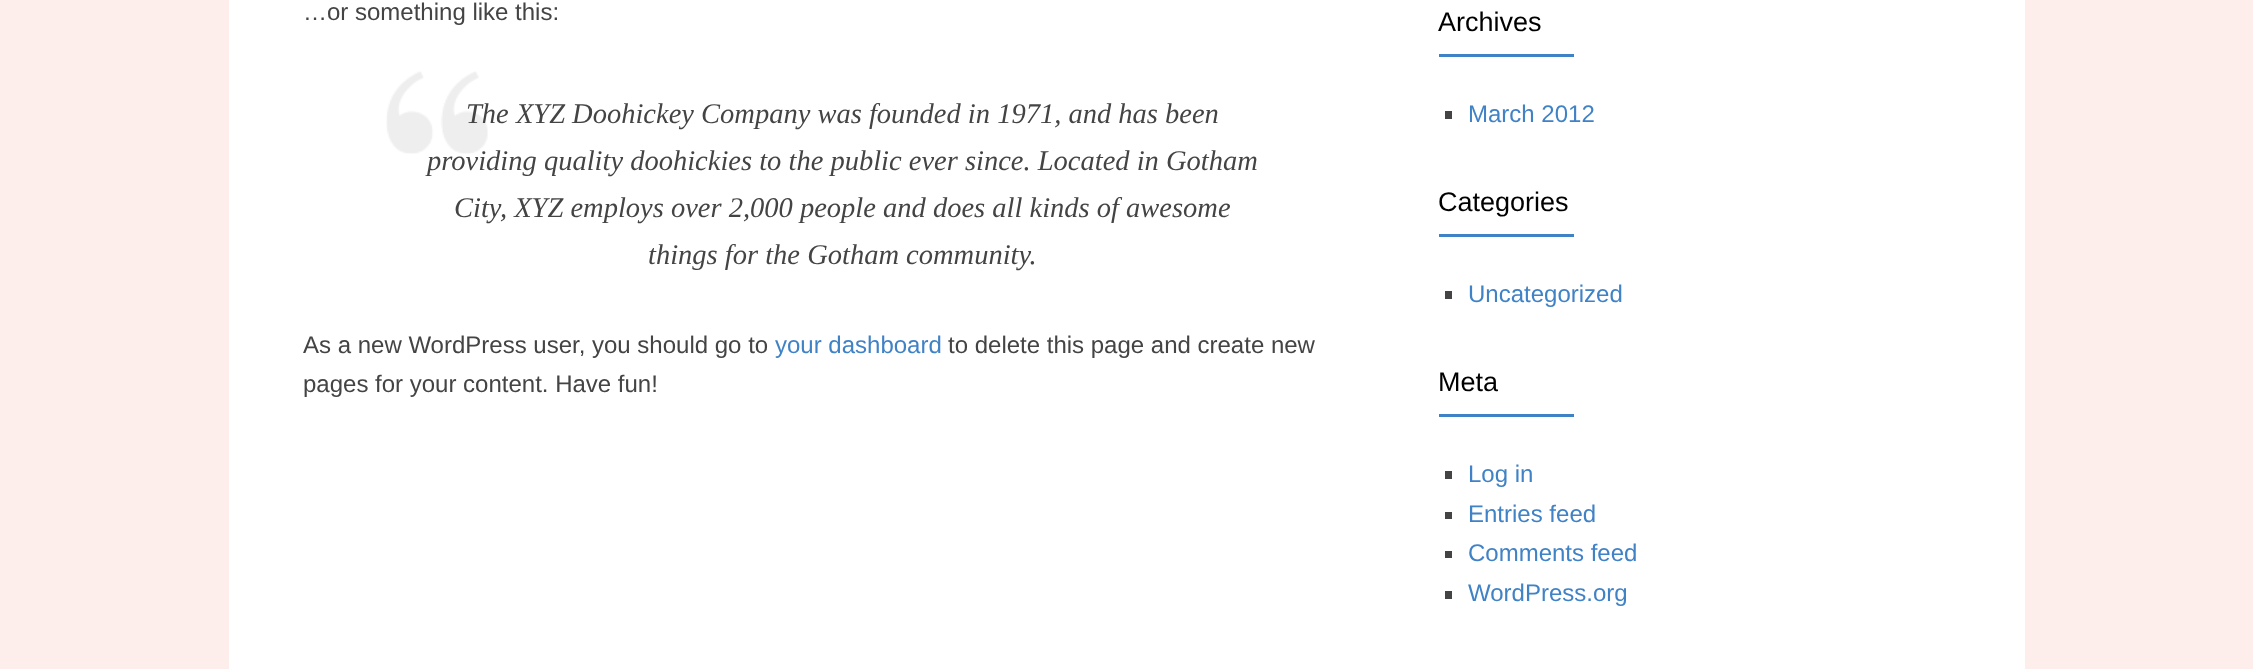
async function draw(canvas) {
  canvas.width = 2253;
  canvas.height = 669;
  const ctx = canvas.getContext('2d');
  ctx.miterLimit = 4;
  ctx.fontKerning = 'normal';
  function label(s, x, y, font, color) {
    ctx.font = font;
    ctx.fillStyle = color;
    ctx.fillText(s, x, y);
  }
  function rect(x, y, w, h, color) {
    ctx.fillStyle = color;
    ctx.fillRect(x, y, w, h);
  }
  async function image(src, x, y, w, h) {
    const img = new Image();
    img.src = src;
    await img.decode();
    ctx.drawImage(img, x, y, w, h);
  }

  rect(0, 0, 2253, 669, '#fdeeec');
  rect(229, 0, 1796, 669, '#fff');
  label('…or something like this:', 303, 20, '24px Liberation Sans', '#444');
  await image('assets/img1.png', 386, 71, 102, 83);
  label('The XYZ Doohickey Company was founded in 1971, and has been', 466, 123, 'italic 28.5px Liberation Serif', '#444');
  label('providing quality doohickies to the public ever since. Located in Gotham', 427, 170, 'italic 28.5px Liberation Serif', '#444');
  label('City, XYZ employs over 2,000 people and does all kinds of awesome', 454, 217, 'italic 28.5px Liberation Serif', '#444');
  label('things for the Gotham community.', 648, 264, 'italic 28.5px Liberation Serif', '#444');
  label('As a new WordPress user, you should go to', 303, 353, '24px Liberation Sans', '#444');
  label('your dashboard', 775, 353, '24px Liberation Sans', '#4082c6');
  label('to delete this page and create new', 948, 353, '24px Liberation Sans', '#444');
  label('pages for your content. Have fun!', 303, 392, '24px Liberation Sans', '#444');
  label('Archives', 1438, 31, '27px Liberation Sans', '#000');
  rect(1439, 54, 135, 3, '#4082c6');
  rect(1445, 111, 7, 8, '#444');
  label('March 2012', 1468, 122, '24px Liberation Sans', '#4082c6');
  label('Categories', 1438, 211, '27px Liberation Sans', '#000');
  rect(1439, 234, 135, 3, '#4082c6');
  rect(1445, 291, 7, 8, '#444');
  label('Uncategorized', 1468, 302, '24px Liberation Sans', '#4082c6');
  label('Meta', 1438, 391, '27px Liberation Sans', '#000');
  rect(1439, 414, 135, 3, '#4082c6');
  rect(1445, 471, 7, 8, '#444');
  label('Log in', 1468, 482, '24px Liberation Sans', '#4082c6');
  rect(1445, 512, 7, 7, '#444');
  label('Entries feed', 1468, 522, '24px Liberation Sans', '#4082c6');
  rect(1445, 551, 7, 7, '#444');
  label('Comments feed', 1468, 561, '24px Liberation Sans', '#4082c6');
  rect(1445, 591, 7, 8, '#444');
  label('WordPress.org', 1468, 601, '24px Liberation Sans', '#4082c6');
}

draw(document.querySelector('canvas'));
